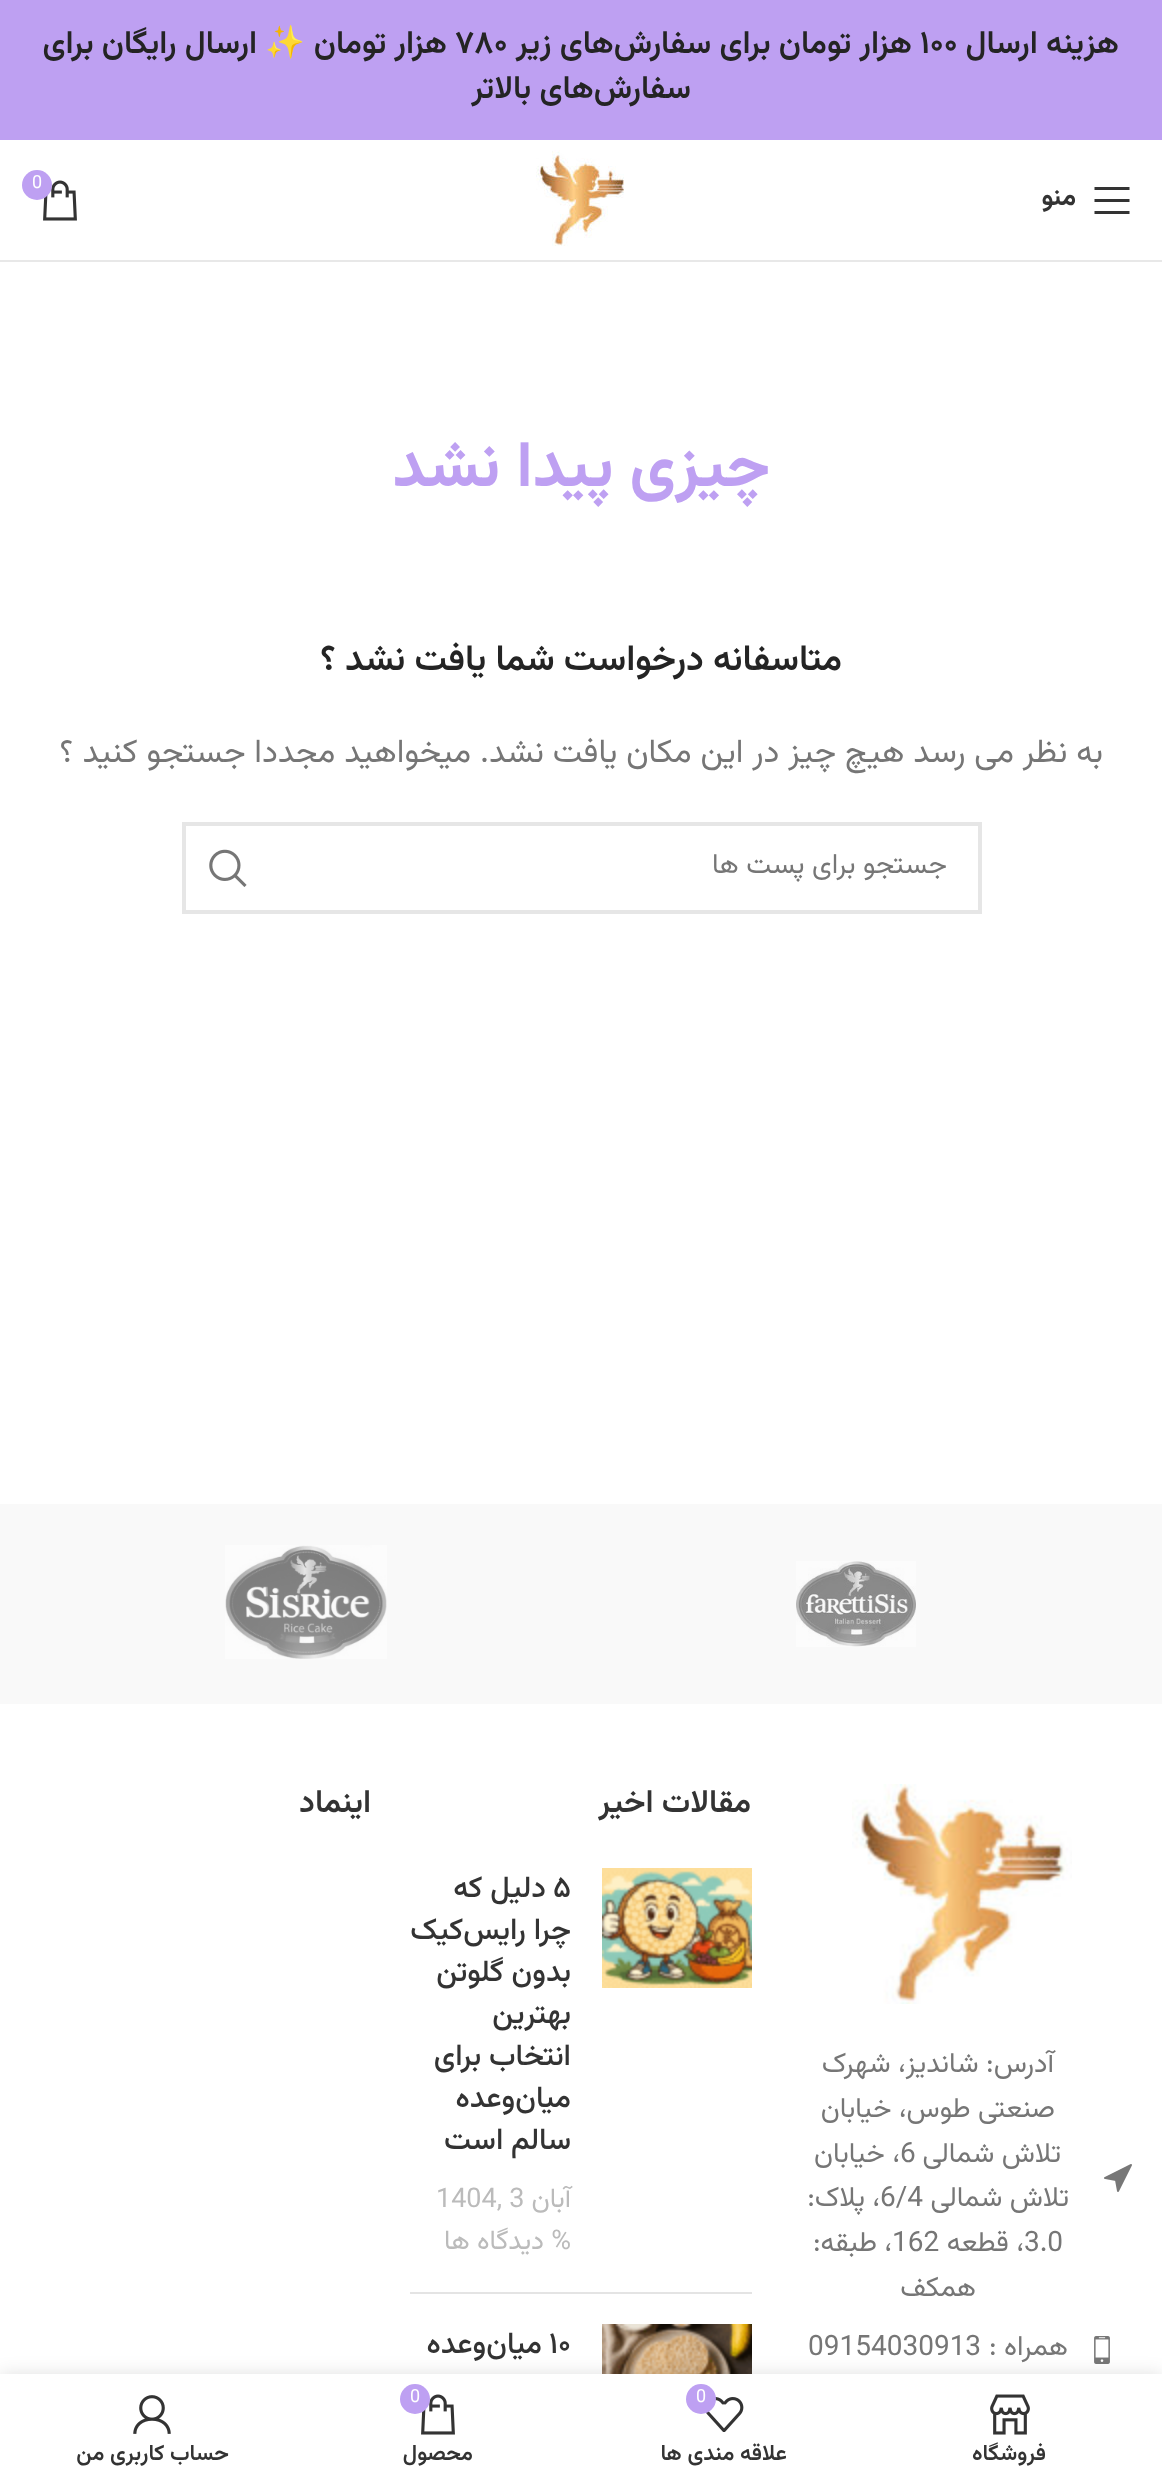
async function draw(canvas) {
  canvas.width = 1162;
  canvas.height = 2484;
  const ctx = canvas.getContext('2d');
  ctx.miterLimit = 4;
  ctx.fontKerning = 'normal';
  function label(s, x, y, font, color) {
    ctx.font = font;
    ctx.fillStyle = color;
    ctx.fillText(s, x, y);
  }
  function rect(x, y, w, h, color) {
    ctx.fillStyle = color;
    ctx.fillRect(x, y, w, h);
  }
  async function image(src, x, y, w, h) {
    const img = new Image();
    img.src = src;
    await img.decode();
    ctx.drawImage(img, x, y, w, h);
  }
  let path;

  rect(0, 0, 1162, 2484, '#fff');
  rect(0, 0, 1162, 140, '#bea0f2');
  ctx.direction = 'rtl';
  label('هزینه ارسال', 1119, 53, '600 32px Vazirmatn', '#242424');
  ctx.direction = 'ltr';
  label('۱۰۰', 920, 53, '600 32px Vazirmatn', '#242424');
  ctx.direction = 'rtl';
  label('هزار تومان برای سفارش‌های زیر', 912, 53, '600 32px Vazirmatn', '#242424');
  ctx.direction = 'ltr';
  label('۷۸۰', 455, 53, '600 32px Vazirmatn', '#242424');
  ctx.direction = 'rtl';
  label('هزار تومان', 447, 53, '600 32px Vazirmatn', '#242424');
  label('✨', 305, 53, 'bold 32px Noto Color Emoji', '#242424');
  label('ارسال رایگان برای', 257, 53, '600 32px Vazirmatn', '#242424');
  label('سفارش‌های بالاتر', 691, 98, '600 32px Vazirmatn', '#242424');
  rect(0, 260, 1162, 2, '#e8e8e8');
  await image('assets/img1.png', 536, 150, 88, 96);
  await image('assets/img2.png', 43, 180, 34, 41);
  ctx.fillStyle = '#bea0f2';
  ctx.beginPath();
  ctx.arc(37, 185, 15, 0, 2 * Math.PI);
  ctx.fill();
  ctx.direction = 'ltr';
  label('0', 32, 188, '18px Vazirmatn', '#fff');
  ctx.fillStyle = '#333';
  path = new Path2D('M1094.5 190H1129.5V187H1094.5ZM1094.5 202H1129.5V199H1094.5ZM1094.5 214H1129.5V211H1094.5Z');
  ctx.fill(path);
  ctx.direction = 'rtl';
  label('منو', 1076, 205, 'bold 26px Vazirmatn', '#333');
  label('چیزی پیدا نشد', 770, 486, 'bold 64px Vazirmatn', '#bea0f2');
  label('متاسفانه درخواست شما یافت نشد ؟', 842, 670, '600 36px Vazirmatn', '#242424');
  label('به نظر می رسد هیچ چیز در این مکان یافت نشد. میخواهید مجددا جستجو کنید ؟', 1103, 762, '33px Vazirmatn', '#767676');
  ctx.strokeStyle = '#e6e6e6';
  ctx.lineWidth = 4;
  ctx.strokeRect(184, 824, 796, 88);
  label('جستجو برای پست ها', 947, 873, '28px Vazirmatn', '#767676');
  await image('assets/img3.png', 209, 849, 38, 38);
  rect(0, 1504, 1162, 200, '#f9f9f9');
  await image('assets/img4.png', 796, 1561, 120, 86);
  await image('assets/img5.png', 225, 1545, 162, 114);
  await image('assets/img6.png', 852, 1784, 220, 220);
  await image('assets/img7.png', 1104, 2164, 28, 28);
  label('آدرس: شاندیز، شهرک', 1054, 2072, '28px Vazirmatn', '#767676');
  label('صنعتی طوس، خیابان', 1055, 2117, '28px Vazirmatn', '#767676');
  label('تلاش شمالی', 1061, 2162, '28px Vazirmatn', '#767676');
  ctx.direction = 'ltr';
  label('6', 900, 2162, '28px Vazirmatn', '#767676');
  ctx.direction = 'rtl';
  label('، خیابان', 900, 2162, '28px Vazirmatn', '#767676');
  label('تلاش شمالی', 1069, 2206, '28px Vazirmatn', '#767676');
  ctx.direction = 'ltr';
  label('6/4', 880, 2206, '28px Vazirmatn', '#767676');
  ctx.direction = 'rtl';
  label('، پلاک:', 880, 2206, '28px Vazirmatn', '#767676');
  ctx.direction = 'ltr';
  label('3.0', 1024, 2251, '28px Vazirmatn', '#767676');
  ctx.direction = 'rtl';
  label('، قطعه', 1024, 2251, '28px Vazirmatn', '#767676');
  ctx.direction = 'ltr';
  label('162', 892, 2251, '28px Vazirmatn', '#767676');
  ctx.direction = 'rtl';
  label('، طبقه:', 892, 2251, '28px Vazirmatn', '#767676');
  label('همکف', 976, 2296, '28px Vazirmatn', '#767676');
  await image('assets/img8.png', 1094, 2336, 16, 28);
  label('همراه :', 1068, 2355, '28px Vazirmatn', '#767676');
  ctx.direction = 'ltr';
  label('09154030913', 808, 2355, '28px Vazirmatn', '#767676');
  ctx.direction = 'rtl';
  label('مقالات اخیر', 751, 1812, '600 32px Vazirmatn', '#333');
  rect(410, 2292, 342, 2, '#e4e4e4');
  await image('assets/img9.png', 602, 1868, 150, 120);
  ctx.direction = 'ltr';
  label('۵', 553, 1897, '500 30px Vazirmatn', '#333');
  ctx.direction = 'rtl';
  label('دلیل که', 546, 1897, '500 30px Vazirmatn', '#333');
  label('چرا رایس‌کیک', 571, 1939, '500 30px Vazirmatn', '#333');
  label('بدون گلوتن', 571, 1981, '500 30px Vazirmatn', '#333');
  label('بهترین', 571, 2023, '500 30px Vazirmatn', '#333');
  label('انتخاب برای', 571, 2065, '500 30px Vazirmatn', '#333');
  label('میان‌وعده', 571, 2107, '500 30px Vazirmatn', '#333');
  label('سالم است', 571, 2149, '500 30px Vazirmatn', '#333');
  label('آبان', 571, 2207, '27px Vazirmatn', '#bbb');
  ctx.direction = 'ltr';
  label('1404, 3', 436, 2207, '27px Vazirmatn', '#bbb');
  ctx.direction = 'rtl';
  label('% دیدگاه ها', 571, 2249, '27px Vazirmatn', '#bbb');
  await image('assets/img10.png', 602, 2324, 150, 50);
  ctx.direction = 'ltr';
  label('۱۰', 549, 2353, '500 30px Vazirmatn', '#333');
  ctx.direction = 'rtl';
  label('میان‌وعده', 542, 2353, '500 30px Vazirmatn', '#333');
  label('اینماد', 371, 1812, '600 32px Vazirmatn', '#333');
  ctx.fillStyle = '#0000001f';
  ctx.filter = 'blur(9px)';
  ctx.beginPath();
  ctx.rect(0, 2374, 1162, 110);
  ctx.fill();
  ctx.filter = 'none';
  rect(0, 2374, 1162, 110, '#fff');
  await image('assets/img11.png', 990, 2394, 40, 41);
  label('فروشگاه', 1046, 2460, '600 22px Vazirmatn', '#333');
  await image('assets/img12.png', 706, 2397, 38, 35);
  ctx.fillStyle = '#bea0f2';
  ctx.beginPath();
  ctx.arc(701, 2399, 15, 0, 2 * Math.PI);
  ctx.fill();
  ctx.direction = 'ltr';
  label('0', 696, 2402, '18px Vazirmatn', '#fff');
  ctx.direction = 'rtl';
  label('علاقه مندی ها', 787, 2460, '600 22px Vazirmatn', '#333');
  await image('assets/img2.png', 421, 2394, 34, 41);
  ctx.fillStyle = '#bea0f2';
  ctx.beginPath();
  ctx.arc(415, 2399, 15, 0, 2 * Math.PI);
  ctx.fill();
  ctx.direction = 'ltr';
  label('0', 410, 2402, '18px Vazirmatn', '#fff');
  ctx.direction = 'rtl';
  label('محصول', 473, 2460, '600 22px Vazirmatn', '#333');
  await image('assets/img13.png', 133, 2395, 38, 39);
  label('حساب کاربری من', 229, 2460, '600 22px Vazirmatn', '#333');
}

draw(document.querySelector('canvas'));
